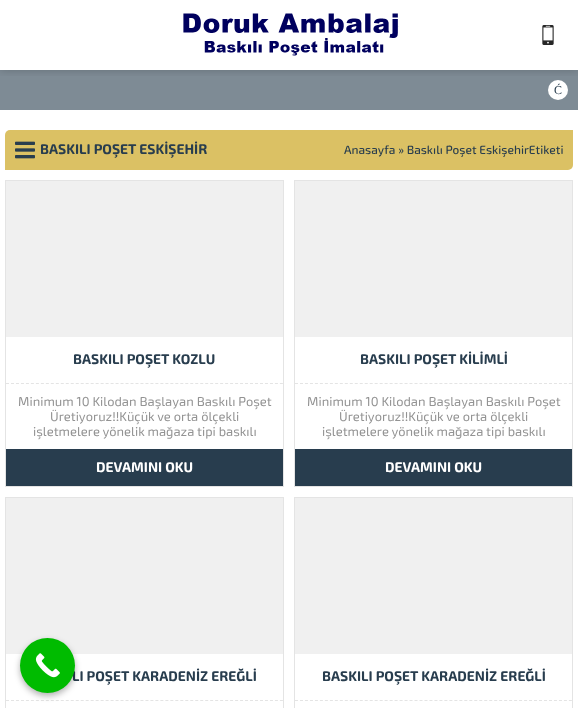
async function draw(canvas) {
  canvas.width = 578;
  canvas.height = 708;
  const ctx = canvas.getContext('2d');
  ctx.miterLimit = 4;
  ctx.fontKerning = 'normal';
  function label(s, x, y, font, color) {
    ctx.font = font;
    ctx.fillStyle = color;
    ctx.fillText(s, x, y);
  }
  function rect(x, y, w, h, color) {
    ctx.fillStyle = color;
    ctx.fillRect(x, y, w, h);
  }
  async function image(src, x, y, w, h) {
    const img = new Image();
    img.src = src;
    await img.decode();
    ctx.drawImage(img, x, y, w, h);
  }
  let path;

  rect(0, 0, 578, 708, '#fff');
  rect(0, 70, 578, 40, '#7e8b95');
  ctx.fillStyle = '#fff';
  ctx.beginPath();
  ctx.arc(558, 90, 10, 0, 2 * Math.PI);
  ctx.fill();
  ctx.save();
  ctx.beginPath();
  ctx.rect(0, 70, 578, 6);
  ctx.clip();
  ctx.fillStyle = '#00000033';
  ctx.filter = 'blur(5px)';
  ctx.beginPath();
  ctx.rect(0, 0, 578, 70);
  ctx.fill();
  ctx.filter = 'none';
  ctx.restore();
  await image('assets/img1.png', 183, 13, 216, 43);
  await image('assets/img2.png', 542, 25, 12, 20);
  label('Ć', 554, 94, '12px Liberation Serif', '#283d4e');
  ctx.fillStyle = '#dbc164';
  ctx.beginPath();
  ctx.roundRect(5, 130, 568, 40, [5, 0, 5, 0]);
  ctx.fill();
  await image('assets/img3.png', 15, 141, 20, 18);
  label('BASKILI POŞET ESKİŞEHİR', 40, 154, 'bold 14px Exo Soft', '#283d4e');
  label('Anasayfa » Baskılı Poşet EskişehirEtiketi', 344, 154, '500 12px Exo Soft', '#283d4e');
  ctx.strokeStyle = '#e4e4e4';
  ctx.strokeRect(5.5, 180.5, 278, 306);
  rect(6, 181, 277, 156, '#f0f0f0');
  path = new Path2D('M6 383.5H283');
  ctx.setLineDash([3, 1.98]);
  ctx.stroke(path);
  label('BASKILI POŞET KOZLU', 73, 364, 'bold 14px Exo Soft', '#283d4e');
  label('Minimum 10 Kilodan Başlayan Baskılı Poşet', 18, 406, '13px Exo Soft', '#939393');
  label('Üretiyoruz!!Küçük ve orta ölçekli', 50, 421, '13px Exo Soft', '#939393');
  label('işletmelere yönelik mağaza tipi baskılı', 33, 436, '13px Exo Soft', '#939393');
  rect(6, 449, 277, 37, '#283d4e');
  label('DEVAMINI OKU', 96, 472, 'bold 14px Exo Soft', '#fff');
  ctx.setLineDash([]);
  ctx.strokeRect(294.5, 180.5, 278, 306);
  rect(295, 181, 277, 156, '#f0f0f0');
  path = new Path2D('M295 383.5H572');
  ctx.setLineDash([3, 1.98]);
  ctx.stroke(path);
  label('BASKILI POŞET KİLİMLİ', 360, 364, 'bold 14px Exo Soft', '#283d4e');
  label('Minimum 10 Kilodan Başlayan Baskılı Poşet', 307, 406, '13px Exo Soft', '#939393');
  label('Üretiyoruz!!Küçük ve orta ölçekli', 339, 421, '13px Exo Soft', '#939393');
  label('işletmelere yönelik mağaza tipi baskılı', 322, 436, '13px Exo Soft', '#939393');
  rect(295, 449, 277, 37, '#283d4e');
  label('DEVAMINI OKU', 385, 472, 'bold 14px Exo Soft', '#fff');
  ctx.setLineDash([]);
  ctx.strokeRect(5.5, 497.5, 278, 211);
  rect(6, 498, 277, 156, '#f0f0f0');
  path = new Path2D('M6 700.5H283');
  ctx.setLineDash([3, 1.98]);
  ctx.stroke(path);
  label('LI POŞET KARADENİZ EREĞLİ', 72, 681, 'bold 14px Exo Soft', '#283d4e');
  ctx.setLineDash([]);
  ctx.strokeRect(294.5, 497.5, 278, 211);
  rect(295, 498, 277, 156, '#f0f0f0');
  path = new Path2D('M295 700.5H572');
  ctx.setLineDash([3, 1.98]);
  ctx.stroke(path);
  label('BASKILI POŞET KARADENİZ EREĞLİ', 322, 681, 'bold 14px Exo Soft', '#283d4e');
  ctx.fillStyle = '#0000004d';
  ctx.filter = 'blur(3px)';
  ctx.beginPath();
  ctx.roundRect(20, 641, 55, 55, 27.5);
  ctx.fill();
  ctx.filter = 'none';
  ctx.fillStyle = '#0b0';
  ctx.beginPath();
  ctx.arc(47.5, 665.5, 27.5, 0, 2 * Math.PI);
  ctx.fill();
  await image('assets/img4.png', 35, 653, 25, 25);
}

draw(document.querySelector('canvas'));
